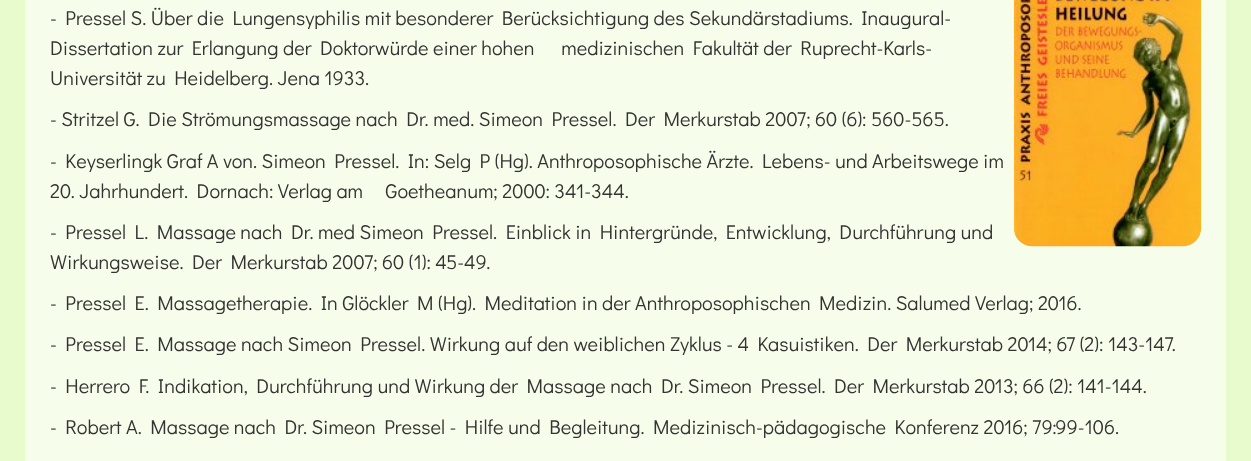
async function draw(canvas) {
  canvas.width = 1251;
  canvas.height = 461;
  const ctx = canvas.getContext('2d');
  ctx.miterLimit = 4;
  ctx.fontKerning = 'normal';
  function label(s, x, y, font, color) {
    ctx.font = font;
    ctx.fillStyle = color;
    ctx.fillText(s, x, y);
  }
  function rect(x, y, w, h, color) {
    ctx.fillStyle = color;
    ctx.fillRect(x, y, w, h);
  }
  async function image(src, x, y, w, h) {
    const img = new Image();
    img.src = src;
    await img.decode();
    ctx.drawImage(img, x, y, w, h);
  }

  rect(0, 0, 1251, 461, '#e8fbcd');
  rect(25, 0, 1201, 461, '#f6fdeb');
  label('- Pressel S. Über die Lungensyphilis mit besonderer Berücksichtigung des Sekundärstadiums. Inaugural-', 50, 25, '20px Didact Gothic', '#333');
  label('Dissertation zur Erlangung der Doktorwürde einer hohen      medizinischen Fakultät der Ruprecht-Karls-', 50, 55, '20px Didact Gothic', '#333');
  label('Universität zu Heidelberg. Jena 1933.', 50, 85, '20px Didact Gothic', '#333');
  await image('assets/img1.png', 1013, 0, 189, 247);
  label('- Stritzel G. Die Strömungsmassage nach Dr. med. Simeon Pressel. Der Merkurstab 2007; 60 (6): 560-565.', 50, 126, '20px Didact Gothic', '#333');
  label('- Keyserlingk Graf A von. Simeon Pressel. In: Selg P (Hg). Anthroposophische Ärzte. Lebens- und Arbeitswege im', 50, 168, '20px Didact Gothic', '#333');
  label('20. Jahrhundert. Dornach: Verlag am     Goetheanum; 2000: 341-344.', 50, 198, '20px Didact Gothic', '#333');
  label('- Pressel L. Massage nach Dr. med Simeon Pressel. Einblick in Hintergründe, Entwicklung, Durchführung und', 50, 239, '20px Didact Gothic', '#333');
  label('Wirkungsweise. Der Merkurstab 2007; 60 (1): 45-49.', 50, 269, '20px Didact Gothic', '#333');
  label('- Pressel E. Massagetherapie. In Glöckler M (Hg). Meditation in der Anthroposophischen Medizin. Salumed Verlag; 2016.', 50, 310, '20px Didact Gothic', '#333');
  label('- Pressel E. Massage nach Simeon Pressel. Wirkung auf den weiblichen Zyklus - 4 Kasuistiken. Der Merkurstab 2014; 67 (2): 143-147.', 50, 351, '20px Didact Gothic', '#333');
  label('- Herrero F. Indikation, Durchführung und Wirkung der Massage nach Dr. Simeon Pressel. Der Merkurstab 2013; 66 (2): 141-144.', 50, 393, '20px Didact Gothic', '#333');
  label('- Robert A. Massage nach Dr. Simeon Pressel - Hilfe und Begleitung. Medizinisch-pädagogische Konferenz 2016; 79:99-106.', 50, 434, '20px Didact Gothic', '#333');
}

draw(document.querySelector('canvas'));
